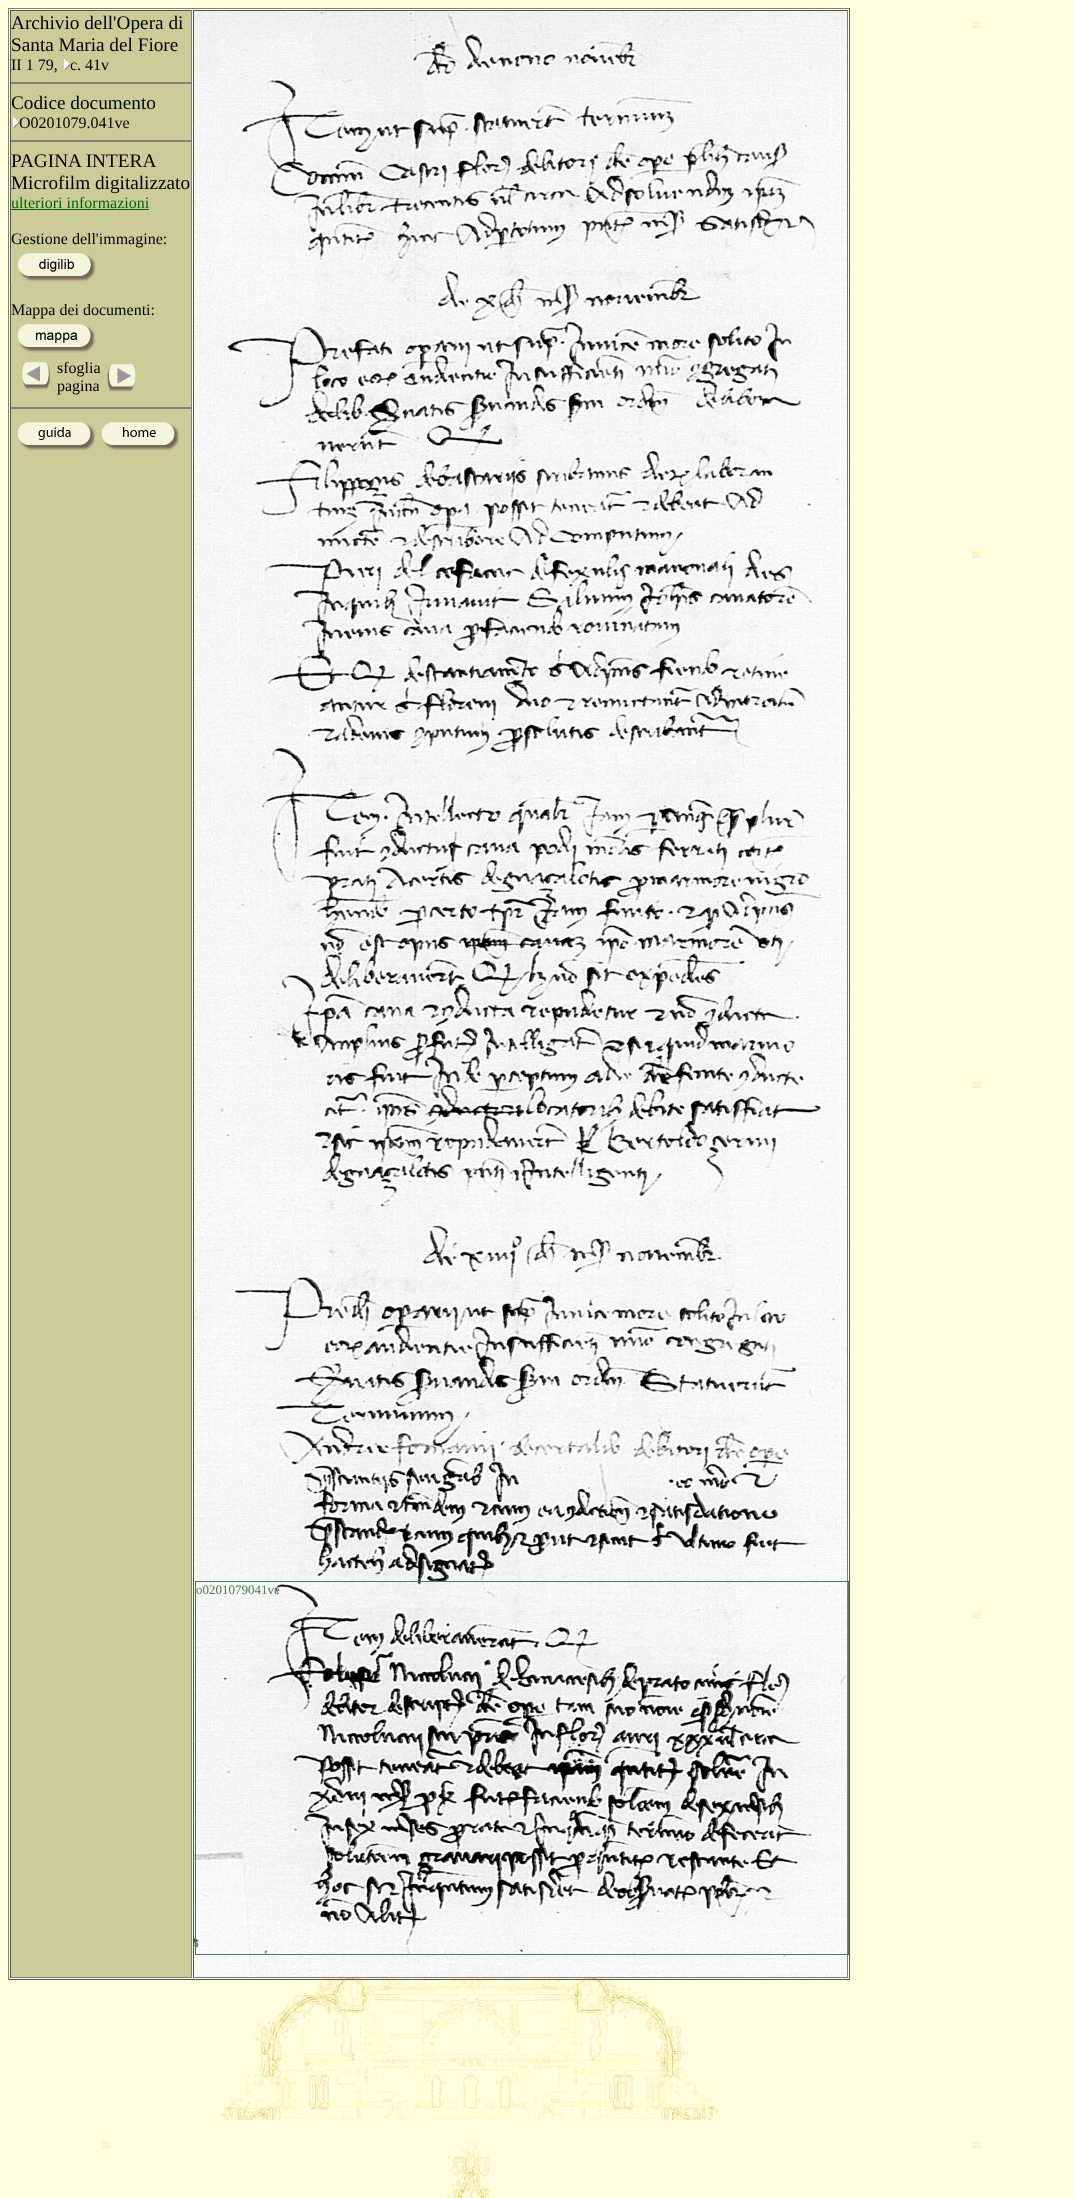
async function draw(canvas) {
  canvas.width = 1074;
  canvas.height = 2198;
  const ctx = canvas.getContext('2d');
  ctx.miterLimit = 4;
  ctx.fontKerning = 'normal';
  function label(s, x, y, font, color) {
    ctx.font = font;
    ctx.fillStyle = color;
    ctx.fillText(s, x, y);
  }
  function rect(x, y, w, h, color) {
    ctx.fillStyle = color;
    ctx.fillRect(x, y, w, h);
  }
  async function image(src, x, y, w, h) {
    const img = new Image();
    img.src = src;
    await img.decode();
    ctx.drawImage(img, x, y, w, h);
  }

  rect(0, 0, 1074, 2198, '#fff');
  await image('assets/img1.png', 0, 0, 1074, 2198);
  rect(8, 8, 842, 1, '#808080');
  rect(849, 8, 1, 1972, '#555');
  rect(8, 1979, 842, 1, '#555');
  rect(8, 8, 1, 1972, '#808080');
  rect(11, 11, 180, 1966, '#cc9');
  rect(10, 10, 182, 1, '#555');
  rect(191, 10, 1, 1968, '#808080');
  rect(10, 1977, 182, 1, '#808080');
  rect(10, 10, 1, 1968, '#555');
  label('Archivio dell\'Opera di', 11, 29, '19.25px Liberation Serif', '#000');
  label('Santa Maria del Fiore', 11, 51, '19.25px Liberation Serif', '#000');
  label('II 1 79,', 11, 70, '16px Liberation Serif', '#000');
  await image('assets/img2.png', 64, 59, 6, 11);
  label('c. 41v', 70, 70, '16px Liberation Serif', '#000');
  rect(11, 82, 180, 2, '#808080');
  label('Codice documento', 11, 109, '19.25px Liberation Serif', '#000');
  await image('assets/img2.png', 13, 117, 6, 11);
  label('O0201079.041ve', 19, 128, '16px Liberation Serif', '#000');
  rect(11, 140, 180, 2, '#808080');
  label('PAGINA INTERA', 11, 167, '19.25px Liberation Serif', '#000');
  label('Microfilm digitalizzato', 11, 189, '19.25px Liberation Serif', '#000');
  label('ulteriori informazioni', 11, 208, '16px Liberation Serif', '#060');
  rect(11, 209, 138, 1, '#060');
  label('Gestione dell\'immagine:', 11, 244, '16px Liberation Serif', '#000');
  await image('assets/img3.png', 11, 248, 85, 35);
  label('Mappa dei documenti:', 11, 315, '16px Liberation Serif', '#000');
  await image('assets/img4.png', 17, 324, 79, 29);
  await image('assets/img5.png', 22, 362, 29, 28);
  label('sfoglia', 57, 373, '16px Liberation Serif', '#000');
  label('pagina', 57, 391, '16px Liberation Serif', '#000');
  await image('assets/img6.png', 107, 364, 29, 28);
  rect(11, 407, 180, 2, '#808080');
  await image('assets/img7.png', 17, 422, 79, 29);
  await image('assets/img8.png', 101, 422, 78, 29);
  rect(193, 10, 655, 1, '#555');
  rect(847, 10, 1, 1968, '#808080');
  rect(193, 1977, 655, 1, '#808080');
  rect(193, 10, 1, 1968, '#555');
  await image('assets/img9.png', 194, 11, 653, 1966);
  ctx.strokeStyle = '#4b7d4b';
  ctx.strokeRect(195.5, 1581.5, 653, 373);
  label('o0201079041ve', 196, 1594, '13px Liberation Serif', '#4b7d4b');
}

draw(document.querySelector('canvas'));
